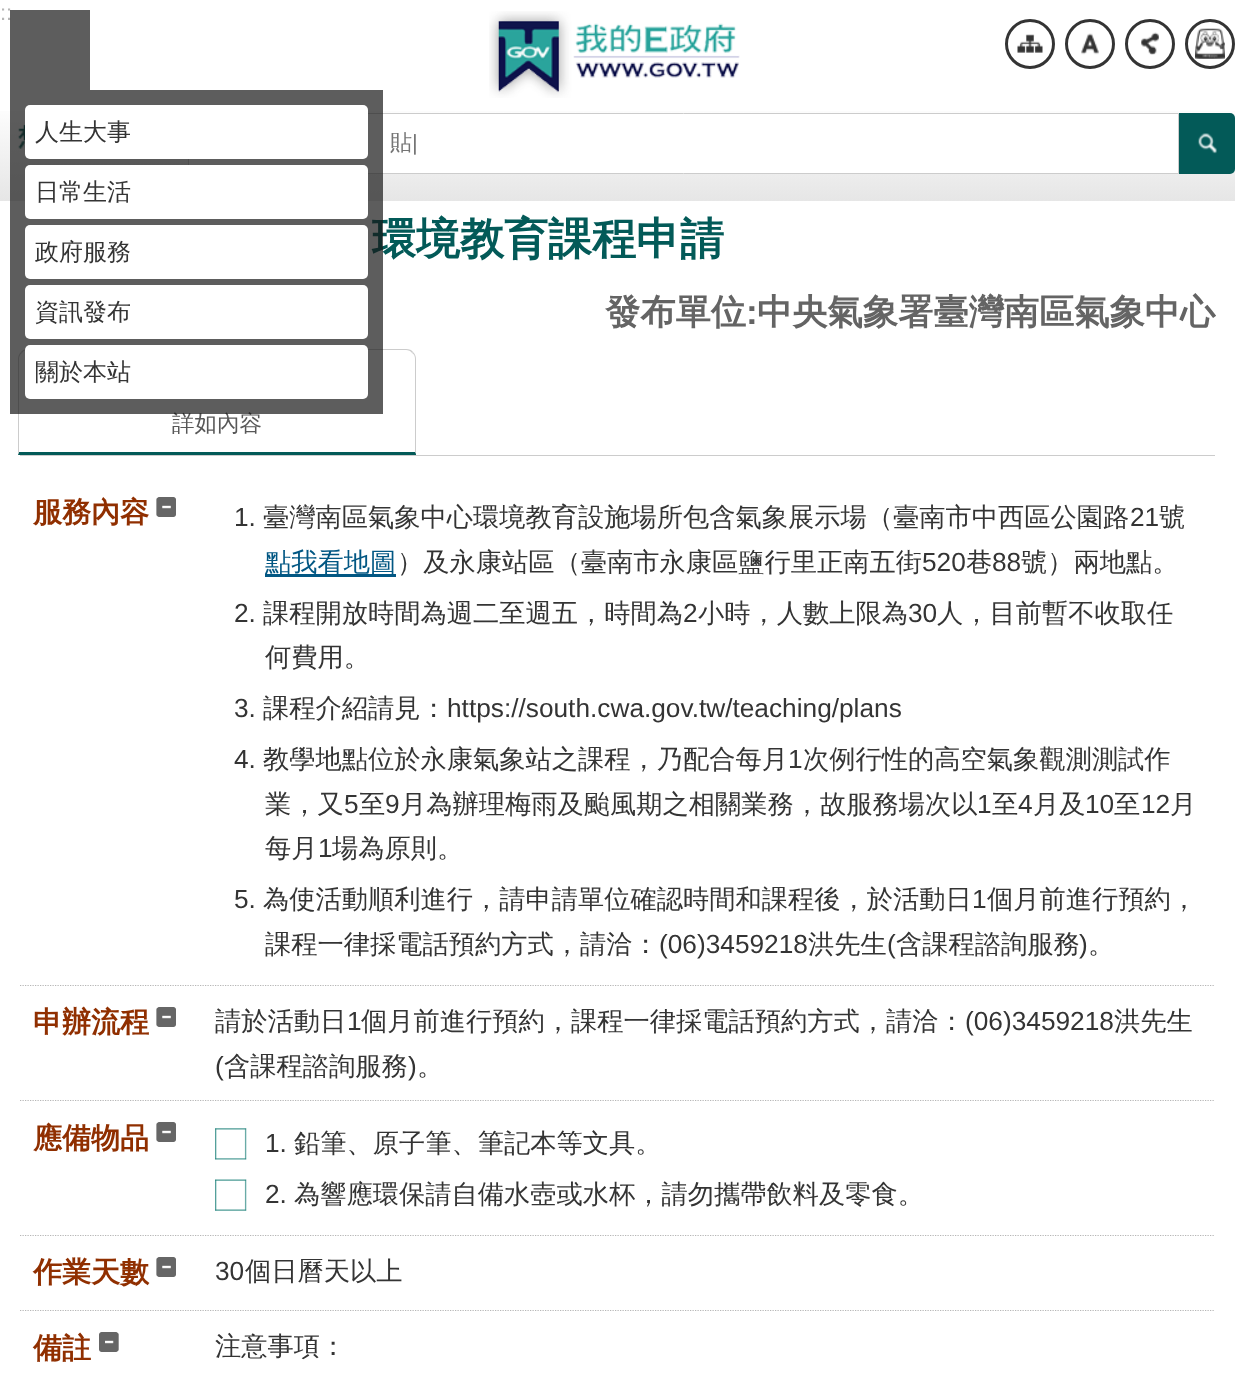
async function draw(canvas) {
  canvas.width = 1235;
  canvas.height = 1379;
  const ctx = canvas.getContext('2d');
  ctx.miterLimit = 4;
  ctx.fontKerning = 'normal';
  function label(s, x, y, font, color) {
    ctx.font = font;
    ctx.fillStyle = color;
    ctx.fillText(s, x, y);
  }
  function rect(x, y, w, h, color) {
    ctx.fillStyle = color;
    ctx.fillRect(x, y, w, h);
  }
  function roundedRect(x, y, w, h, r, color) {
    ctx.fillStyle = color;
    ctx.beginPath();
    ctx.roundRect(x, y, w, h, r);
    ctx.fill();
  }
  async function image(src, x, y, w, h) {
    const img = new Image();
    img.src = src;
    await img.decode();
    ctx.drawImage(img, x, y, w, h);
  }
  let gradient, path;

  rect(0, 0, 1235, 1379, '#fff');
  gradient = ctx.createLinearGradient(618, 0, 618, 201);
  gradient.addColorStop(0, '#fff');
  gradient.addColorStop(0.5, '#fff');
  gradient.addColorStop(1, '#e6e6e6');
  ctx.fillStyle = gradient;
  ctx.fillRect(0, 111, 1235, 90);
  label('::', 0, 20, '22px Liberation Sans', '#b6b6b6');
  await image('assets/img1.png', 489, 11, 251, 87);
  await image('assets/img2.png', 1017, 34, 26, 19);
  ctx.beginPath();
  ctx.arc(1030, 44, 23.5, 0, 2 * Math.PI);
  ctx.strokeStyle = '#343434';
  ctx.lineWidth = 3;
  ctx.stroke();
  await image('assets/img3.png', 1081, 33, 18, 22);
  ctx.beginPath();
  ctx.arc(1090, 44, 23.5, 0, 2 * Math.PI);
  ctx.stroke();
  await image('assets/img4.png', 1141, 32, 18, 23);
  ctx.beginPath();
  ctx.arc(1150, 44, 23.5, 0, 2 * Math.PI);
  ctx.stroke();
  await image('assets/img5.png', 1195, 28, 30, 31);
  ctx.beginPath();
  ctx.arc(1210, 44, 23.5, 0, 2 * Math.PI);
  ctx.stroke();
  rect(10, 10, 80, 80, '#181818b3');
  await image('assets/img6.png', 18, 124, 7, 25);
  ctx.fillStyle = '#fff';
  ctx.beginPath();
  ctx.rect(188.5, 113.5, 990, 60);
  ctx.fill();
  ctx.strokeStyle = '#ccc';
  ctx.lineWidth = 1;
  ctx.stroke();
  label('環境教育課程申請', 372, 254, 'bold 44px WenQuanYi Zen Hei', '#035a58');
  ctx.fillStyle = '#ccc';
  path = new Path2D('M28 349C25 349 22 350 21 352L22 353C23 351 25 350 28 350H406C408 350 411 351 412 353L413 352C412 350 409 349 406 349Z');
  ctx.fill(path);
  path = new Path2D('M416 454V359C416 356 415 354 413 352L412 353C414 354 415 356 415 359V452Z');
  ctx.fill(path);
  ctx.fillStyle = '#035a58';
  path = new Path2D('M18 455H416V454L415 452H19Z');
  ctx.fill(path);
  ctx.fillStyle = '#ccc';
  path = new Path2D('M21 352C19 354 18 356 18 359V454L19 452V359C19 357 20 354 22 353Z');
  ctx.fill(path);
  label('詳如內容', 172, 431, '500 22.5px WenQuanYi Zen Hei', '#585858');
  rect(10, 90, 373, 324, '#181818b3');
  roundedRect(25, 105, 343, 54, 5, '#fff');
  label('人生大事', 35, 140, '500 24px WenQuanYi Zen Hei', '#343434');
  roundedRect(25, 165, 343, 54, 5, '#fff');
  label('日常生活', 35, 200, '500 24px WenQuanYi Zen Hei', '#343434');
  roundedRect(25, 225, 343, 54, 5, '#fff');
  label('政府服務', 35, 260, '500 24px WenQuanYi Zen Hei', '#343434');
  roundedRect(25, 285, 343, 54, 5, '#fff');
  label('資訊發布', 35, 320, '500 24px WenQuanYi Zen Hei', '#343434');
  roundedRect(25, 345, 343, 54, 5, '#fff');
  label('關於本站', 35, 380, '500 24px WenQuanYi Zen Hei', '#343434');
  label('貼', 390, 150, '500 22px WenQuanYi Zen Hei', '#757575');
  label('|', 412, 150, '22px Liberation Sans', '#757575');
  ctx.fillStyle = '#035a58';
  ctx.beginPath();
  ctx.roundRect(1179, 113, 56, 61, [0, 5, 5, 0]);
  ctx.fill();
  await image('assets/img7.png', 1198, 133, 19, 21);
  label('發布單位', 605, 324, 'bold 35.25px WenQuanYi Zen Hei', '#646464');
  label(':', 746, 324, 'bold 35.25px Liberation Sans', '#646464');
  label('中央氣象署臺灣南區氣象中心', 757, 324, 'bold 35.25px WenQuanYi Zen Hei', '#646464');
  rect(20, 455, 1195, 1, '#ccc');
  path = new Path2D('M20 985.5H1215');
  ctx.strokeStyle = '#b6b6b6';
  ctx.lineWidth = 1.2;
  ctx.setLineDash([1.25, 1.25]);
  ctx.stroke(path);
  label('服務內容', 33, 522, 'bold 29px WenQuanYi Zen Hei', '#902f00');
  await image('assets/img8.png', 156, 497, 20, 20);
  label('1.', 234, 526, '26.25px Liberation Sans', '#343434');
  label('臺灣南區氣象中心環境教育設施場所包含氣象展示場（臺南市中西區公園路', 263, 526, '500 26.25px WenQuanYi Zen Hei', '#343434');
  label('21', 1130, 526, '26.25px Liberation Sans', '#343434');
  label('號', 1159, 526, '500 26.25px WenQuanYi Zen Hei', '#343434');
  rect(265, 574, 131, 3, '#025783');
  label('點我看地圖', 265, 571, '500 26.25px WenQuanYi Zen Hei', '#025783');
  label('）及永康站區（臺南市永康區鹽行里正南五街', 397, 571, '500 26.25px WenQuanYi Zen Hei', '#343434');
  label('520', 922, 571, '26.25px Liberation Sans', '#343434');
  label('巷', 966, 571, '500 26.25px WenQuanYi Zen Hei', '#343434');
  label('88', 992, 571, '26.25px Liberation Sans', '#343434');
  label('號）兩地點。', 1021, 571, '500 26.25px WenQuanYi Zen Hei', '#343434');
  label('2.', 234, 622, '26.25px Liberation Sans', '#343434');
  label('課程開放時間為週二至週五，時間為', 263, 622, '500 26.25px WenQuanYi Zen Hei', '#343434');
  label('2', 683, 622, '26.25px Liberation Sans', '#343434');
  label('小時，人數上限為', 698, 622, '500 26.25px WenQuanYi Zen Hei', '#343434');
  label('30', 908, 622, '26.25px Liberation Sans', '#343434');
  label('人，目前暫不收取任', 937, 622, '500 26.25px WenQuanYi Zen Hei', '#343434');
  label('何費用。', 265, 666, '500 26.25px WenQuanYi Zen Hei', '#343434');
  label('3.', 234, 717, '26.25px Liberation Sans', '#343434');
  label('課程介紹請見：', 263, 717, '500 26.25px WenQuanYi Zen Hei', '#343434');
  label('https://south.cwa.gov.tw/teaching/plans', 447, 717, '26.25px Liberation Sans', '#343434');
  label('4.', 234, 768, '26.25px Liberation Sans', '#343434');
  label('教學地點位於永康氣象站之課程，乃配合每月', 263, 768, '500 26.25px WenQuanYi Zen Hei', '#343434');
  label('1', 788, 768, '26.25px Liberation Sans', '#343434');
  label('次例行性的高空氣象觀測測試作', 803, 768, '500 26.25px WenQuanYi Zen Hei', '#343434');
  label('業，又', 265, 813, '500 26.25px WenQuanYi Zen Hei', '#343434');
  label('5', 344, 813, '26.25px Liberation Sans', '#343434');
  label('至', 359, 813, '500 26.25px WenQuanYi Zen Hei', '#343434');
  label('9', 385, 813, '26.25px Liberation Sans', '#343434');
  label('月為辦理梅雨及颱風期之相關業務，故服務場次以', 400, 813, '500 26.25px WenQuanYi Zen Hei', '#343434');
  label('1', 977, 813, '26.25px Liberation Sans', '#343434');
  label('至', 992, 813, '500 26.25px WenQuanYi Zen Hei', '#343434');
  label('4', 1018, 813, '26.25px Liberation Sans', '#343434');
  label('月及', 1033, 813, '500 26.25px WenQuanYi Zen Hei', '#343434');
  label('10', 1085, 813, '26.25px Liberation Sans', '#343434');
  label('至', 1114, 813, '500 26.25px WenQuanYi Zen Hei', '#343434');
  label('12', 1141, 813, '26.25px Liberation Sans', '#343434');
  label('月', 1170, 813, '500 26.25px WenQuanYi Zen Hei', '#343434');
  label('每月', 265, 857, '500 26.25px WenQuanYi Zen Hei', '#343434');
  label('1', 318, 857, '26.25px Liberation Sans', '#343434');
  label('場為原則。', 332, 857, '500 26.25px WenQuanYi Zen Hei', '#343434');
  label('5.', 234, 908, '26.25px Liberation Sans', '#343434');
  label('為使活動順利進行，請申請單位確認時間和課程後，於活動日', 263, 908, '500 26.25px WenQuanYi Zen Hei', '#343434');
  label('1', 972, 908, '26.25px Liberation Sans', '#343434');
  label('個月前進行預約，', 987, 908, '500 26.25px WenQuanYi Zen Hei', '#343434');
  label('課程一律採電話預約方式，請洽：', 265, 953, '500 26.25px WenQuanYi Zen Hei', '#343434');
  label('(06)3459218', 659, 953, '26.25px Liberation Sans', '#343434');
  label('洪先生', 808, 953, '500 26.25px WenQuanYi Zen Hei', '#343434');
  label('(', 887, 953, '26.25px Liberation Sans', '#343434');
  label('含課程諮詢服務', 896, 953, '500 26.25px WenQuanYi Zen Hei', '#343434');
  label(')', 1079, 953, '26.25px Liberation Sans', '#343434');
  label('。', 1088, 953, '500 26.25px WenQuanYi Zen Hei', '#343434');
  path = new Path2D('M20 1100.5H1215');
  ctx.stroke(path);
  label('申辦流程', 33, 1032, 'bold 29px WenQuanYi Zen Hei', '#902f00');
  await image('assets/img8.png', 156, 1007, 20, 20);
  label('請於活動日', 215, 1030, '500 26.25px WenQuanYi Zen Hei', '#343434');
  label('1', 347, 1030, '26.25px Liberation Sans', '#343434');
  label('個月前進行預約，課程一律採電話預約方式，請洽：', 361, 1030, '500 26.25px WenQuanYi Zen Hei', '#343434');
  label('(06)3459218', 965, 1030, '26.25px Liberation Sans', '#343434');
  label('洪先生', 1114, 1030, '500 26.25px WenQuanYi Zen Hei', '#343434');
  label('(', 215, 1075, '26.25px Liberation Sans', '#343434');
  label('含課程諮詢服務', 224, 1075, '500 26.25px WenQuanYi Zen Hei', '#343434');
  label(')', 408, 1075, '26.25px Liberation Sans', '#343434');
  label('。', 417, 1075, '500 26.25px WenQuanYi Zen Hei', '#343434');
  path = new Path2D('M20 1235.5H1215');
  ctx.stroke(path);
  label('應備物品', 33, 1148, 'bold 29px WenQuanYi Zen Hei', '#902f00');
  await image('assets/img8.png', 156, 1122, 20, 20);
  await image('assets/img9.png', 215, 1128, 32, 32);
  label('1.', 265, 1152, '26.25px Liberation Sans', '#343434');
  label('鉛筆、原子筆、筆記本等文具。', 294, 1152, '500 26.25px WenQuanYi Zen Hei', '#343434');
  await image('assets/img10.png', 215, 1179, 32, 32);
  label('2.', 265, 1203, '26.25px Liberation Sans', '#343434');
  label('為響應環保請自備水壺或水杯，請勿攜帶飲料及零食。', 294, 1203, '500 26.25px WenQuanYi Zen Hei', '#343434');
  path = new Path2D('M20 1310.5H1215');
  ctx.stroke(path);
  label('作業天數', 33, 1282, 'bold 29px WenQuanYi Zen Hei', '#902f00');
  await image('assets/img8.png', 156, 1257, 20, 20);
  label('30', 215, 1280, '26.25px Liberation Sans', '#343434');
  label('個日曆天以上', 245, 1280, '500 26.25px WenQuanYi Zen Hei', '#343434');
  label('備註', 33, 1358, 'bold 29px WenQuanYi Zen Hei', '#902f00');
  await image('assets/img11.png', 99, 1332, 20, 20);
  label('注意事項：', 215, 1355, '500 26.25px WenQuanYi Zen Hei', '#343434');
}

draw(document.querySelector('canvas'));
